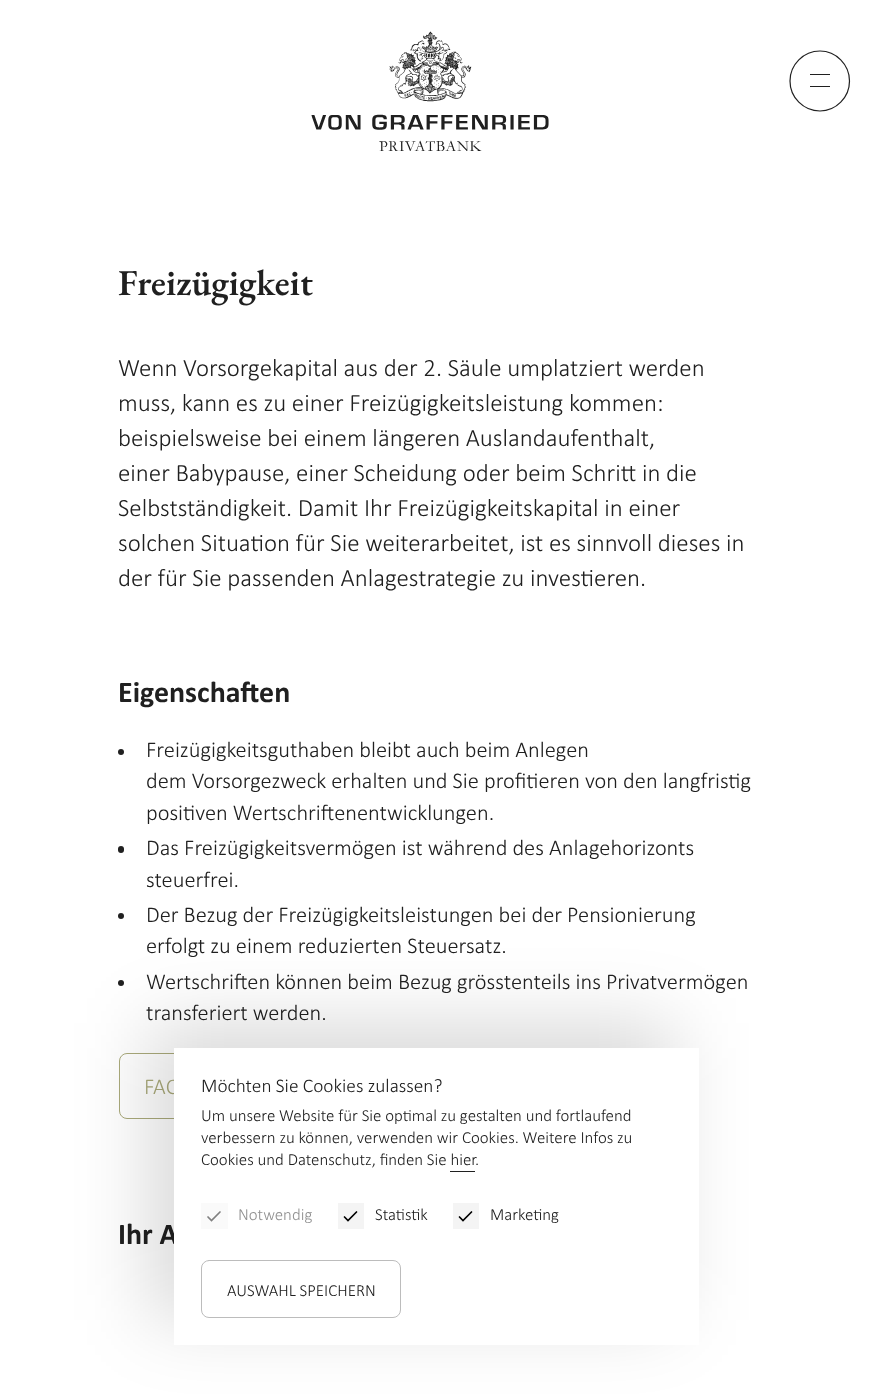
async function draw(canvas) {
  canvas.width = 871;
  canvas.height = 1394;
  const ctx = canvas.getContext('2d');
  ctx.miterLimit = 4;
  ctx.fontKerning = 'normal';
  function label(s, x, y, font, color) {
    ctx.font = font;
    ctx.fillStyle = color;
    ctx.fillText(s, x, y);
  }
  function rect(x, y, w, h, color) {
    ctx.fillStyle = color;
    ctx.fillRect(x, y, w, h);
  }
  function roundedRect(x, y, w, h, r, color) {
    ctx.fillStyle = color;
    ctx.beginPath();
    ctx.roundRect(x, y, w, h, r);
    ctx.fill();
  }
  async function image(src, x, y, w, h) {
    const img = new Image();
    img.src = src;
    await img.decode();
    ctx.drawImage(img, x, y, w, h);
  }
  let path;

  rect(0, 0, 871, 1394, '#fff');
  await image('assets/img1.png', 311, 31, 238, 120);
  path = new Path2D('M820 111C836 111 849.5 97.5 849.5 81C849.5 64.5 836 51 820 51C803.5 51 790 64.5 790 81C790 97.5 803.5 111 820 111Z');
  ctx.strokeStyle = '#202020';
  ctx.lineWidth = 1.2;
  ctx.stroke(path);
  rect(810, 74, 20, 1, '#202020');
  rect(810, 86, 20, 1, '#202020');
  label('Freizügigkeit', 118, 295, '600 36.5px EB Garamond', '#202020');
  label('Wenn Vorsorgekapital aus der 2. Säule umplatziert werden', 118, 376, '300 25px Calibri', '#202020');
  label('muss, kann es zu einer Freizügigkeitsleistung kommen:', 118, 411, '300 25px Calibri', '#202020');
  label('beispielsweise bei einem längeren Auslandaufenthalt,', 118, 446, '300 25px Calibri', '#202020');
  label('einer Babypause, einer Scheidung oder beim Schritt in die', 118, 481, '300 25px Calibri', '#202020');
  label('Selbstständigkeit. Damit Ihr Freizügigkeitskapital in einer', 118, 516, '300 25px Calibri', '#202020');
  label('solchen Situation für Sie weiterarbeitet, ist es sinnvoll dieses in', 118, 551, '300 25px Calibri', '#202020');
  label('der für Sie passenden Anlagestrategie zu investieren.', 118, 586, '300 25px Calibri', '#202020');
  label('Eigenschaften', 118, 702, 'bold 30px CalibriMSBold', '#202020');
  ctx.beginPath();
  ctx.arc(121, 752, 3, 0, 2 * Math.PI);
  ctx.fill();
  label('Freizügigkeitsguthaben bleibt auch beim Anlegen', 146, 757, '300 22.5px Calibri', '#202020');
  label('dem Vorsorgezweck erhalten und Sie profitieren von den langfristig', 146, 788, '300 22.5px Calibri', '#202020');
  label('positiven Wertschriftenentwicklungen.', 146, 820, '300 22.5px Calibri', '#202020');
  roundedRect(118, 846, 6, 7, 3, '#202020');
  label('Das Freizügigkeitsvermögen ist während des Anlagehorizonts', 146, 855, '300 22.5px Calibri', '#202020');
  label('steuerfrei.', 146, 887, '300 22.5px Calibri', '#202020');
  ctx.beginPath();
  ctx.arc(121, 916, 3, 0, 2 * Math.PI);
  ctx.fill();
  label('Der Bezug der Freizügigkeitsleistungen bei der Pensionierung', 146, 922, '300 22.5px Calibri', '#202020');
  label('erfolgt zu einem reduzierten Steuersatz.', 146, 953, '300 22.5px Calibri', '#202020');
  ctx.beginPath();
  ctx.arc(121, 983, 3, 0, 2 * Math.PI);
  ctx.fill();
  label('Wertschriften können beim Bezug grösstenteils ins Privatvermögen', 146, 989, '300 22.5px Calibri', '#202020');
  label('transferiert werden.', 146, 1020, '300 22.5px Calibri', '#202020');
  ctx.beginPath();
  ctx.roundRect(119.5, 1053.5, 329, 65, 7.5);
  ctx.strokeStyle = '#aaaa7b';
  ctx.lineWidth = 1;
  ctx.stroke();
  label('FAC', 144, 1094, '300 22.5px Calibri', '#aaaa7b');
  label('Ihr A', 118, 1244, 'bold 30px CalibriMSBold', '#202020');
  ctx.fillStyle = '#00000026';
  ctx.filter = 'blur(37.5px)';
  ctx.beginPath();
  ctx.rect(149, 1023, 525, 297);
  ctx.fill();
  ctx.filter = 'none';
  rect(174, 1048, 525, 297, '#fff');
  label('Möchten Sie Cookies zulassen?', 201, 1092, '300 19.4px Calibri', '#202020');
  label('Um unsere Website für Sie optimal zu gestalten und fortlaufend', 201, 1121, '300 16.9px Calibri', '#202020');
  label('verbessern zu können, verwenden wir Cookies. Weitere Infos zu', 201, 1143, '300 16.9px Calibri', '#202020');
  label('Cookies und Datenschutz, finden Sie hier', 201, 1165, '300 16.9px Calibri', '#202020');
  label('.', 475, 1165, '300 16.9px Calibri', '#202020');
  rect(450, 1171, 25, 1, '#202020');
  rect(201, 1203, 27, 26, '#fafafa');
  path = new Path2D('M208 1217L211.5 1220.5L220 1212');
  ctx.strokeStyle = '#808080';
  ctx.lineWidth = 1.7;
  ctx.lineCap = 'round';
  ctx.stroke(path);
  label('Notwendig', 238, 1220, '300 16.9px Calibri', '#909090');
  rect(338, 1203, 26, 26, '#f4f4f4');
  path = new Path2D('M344.5 1217L348 1220.5L356.5 1212');
  ctx.strokeStyle = '#000';
  ctx.stroke(path);
  label('Statistik', 375, 1220, '300 16.9px Calibri', '#202020');
  rect(453, 1203, 26, 26, '#f4f4f4');
  path = new Path2D('M459.5 1217L463 1220.5L471.5 1212');
  ctx.stroke(path);
  label('Marketing', 490, 1220, '300 16.9px Calibri', '#202020');
  ctx.beginPath();
  ctx.roundRect(201.5, 1260.5, 199, 57, 7.5);
  ctx.strokeStyle = '#bcbcbc';
  ctx.lineWidth = 1;
  ctx.stroke();
  label('AUSWAHL SPEICHERN', 227, 1296, '300 16.9px Calibri', '#202020');
}

draw(document.querySelector('canvas'));
